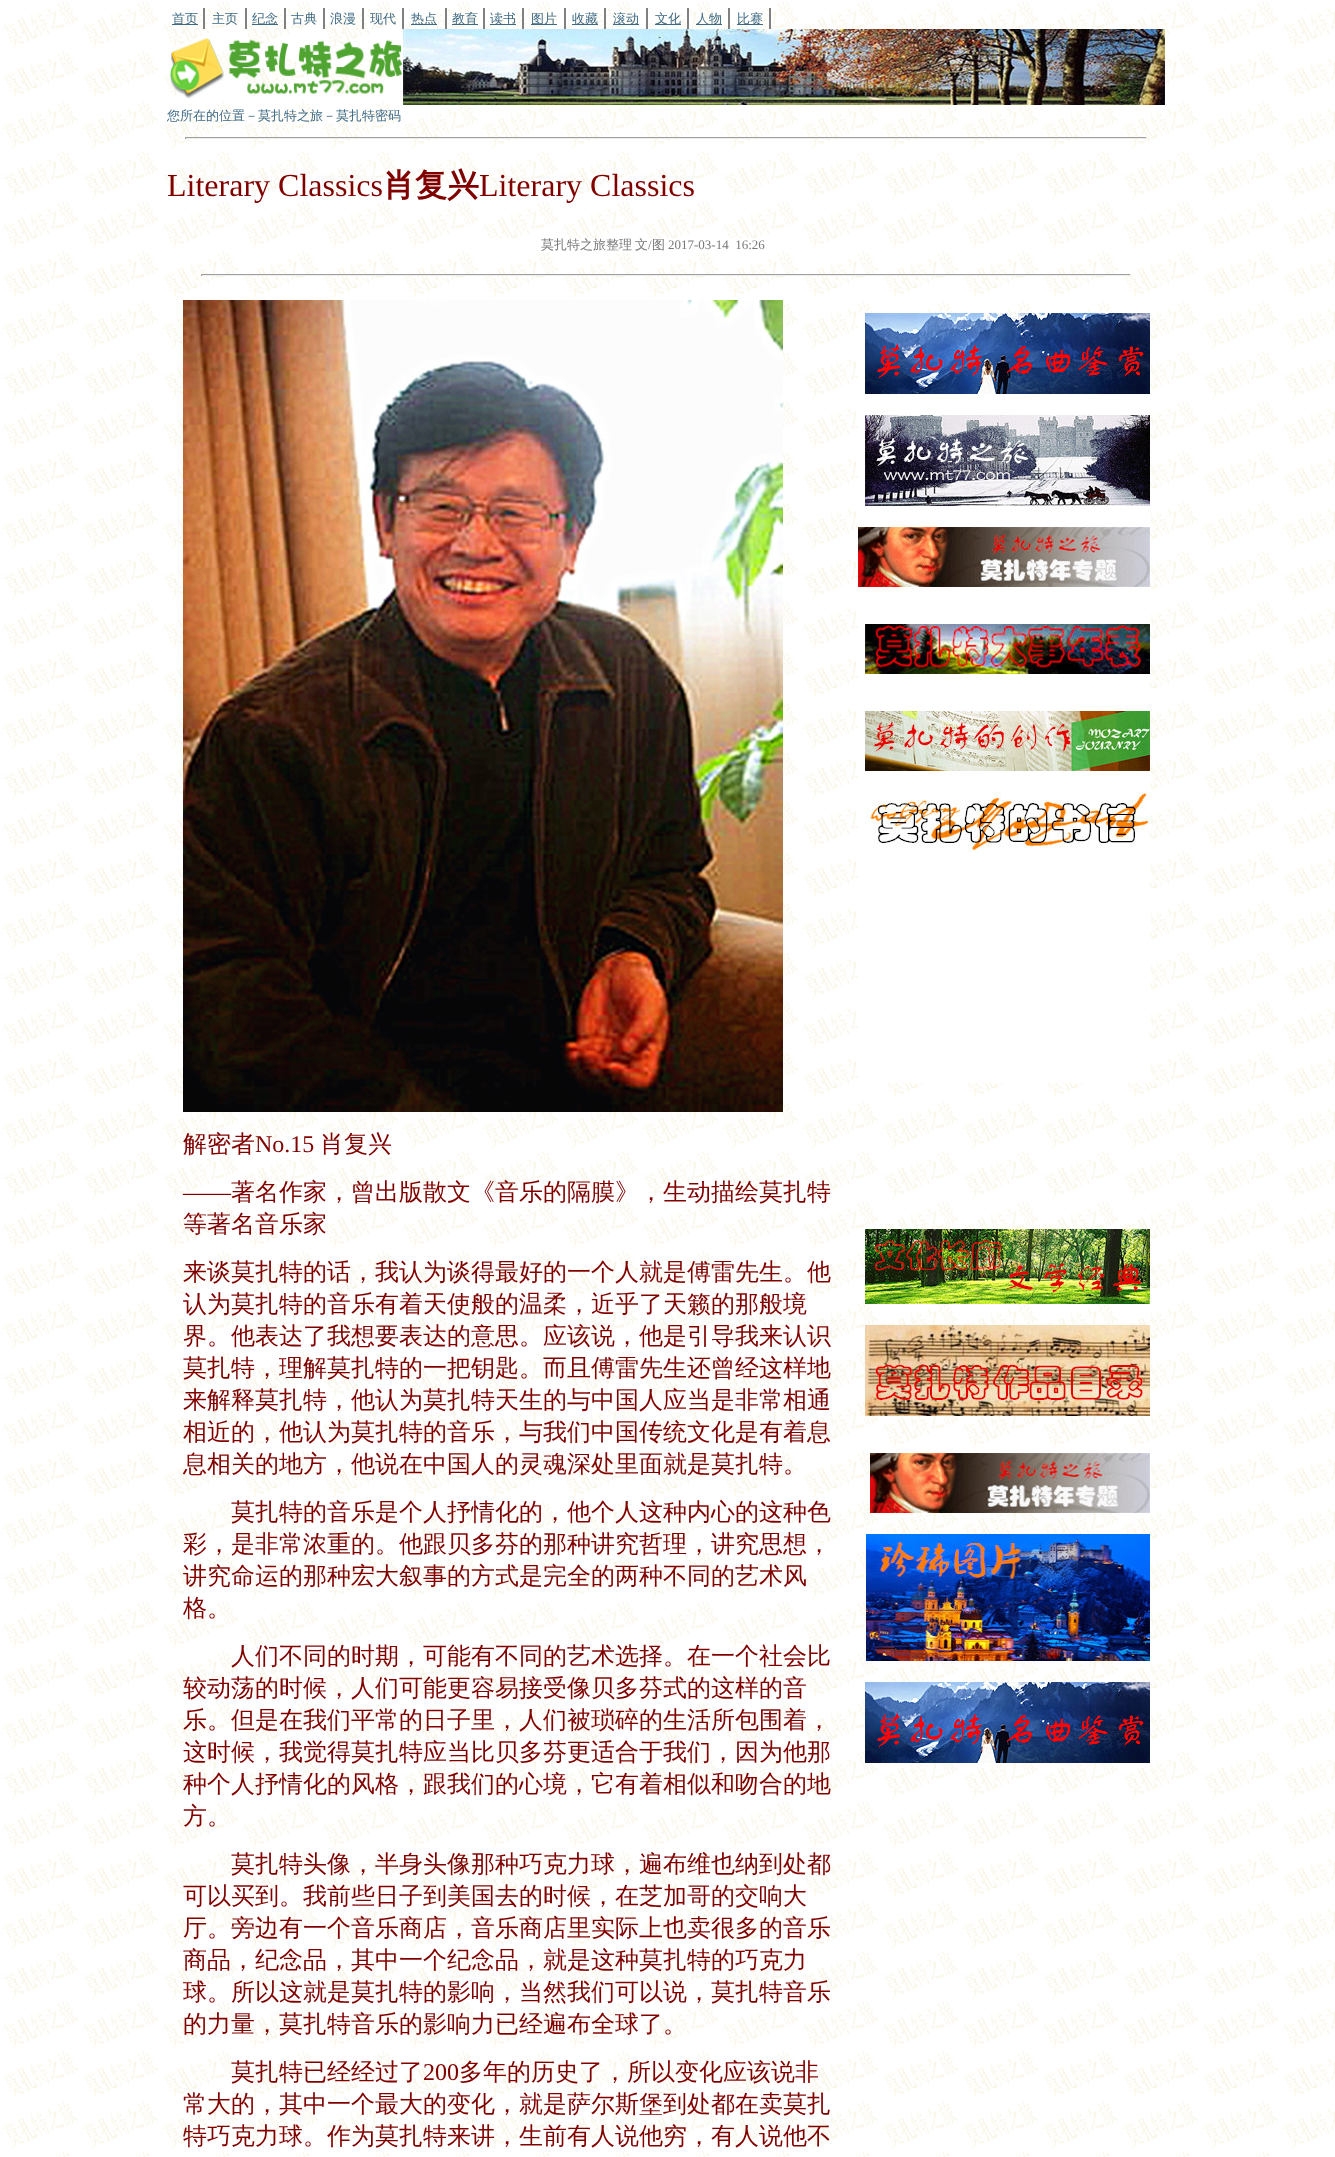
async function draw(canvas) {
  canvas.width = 1335;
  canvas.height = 2157;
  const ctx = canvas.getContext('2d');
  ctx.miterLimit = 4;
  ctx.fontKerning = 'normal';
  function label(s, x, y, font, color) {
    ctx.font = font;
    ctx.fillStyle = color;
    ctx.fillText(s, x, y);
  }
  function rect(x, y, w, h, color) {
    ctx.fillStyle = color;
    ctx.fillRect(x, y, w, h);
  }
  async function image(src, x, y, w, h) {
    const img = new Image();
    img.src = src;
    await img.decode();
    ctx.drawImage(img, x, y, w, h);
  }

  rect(0, 0, 1335, 2157, '#fff');
  await image('assets/img1.png', 3, 1, 1332, 2156);
  rect(203, 8, 2, 21, '#808080');
  rect(172, 24, 26, 1, '#3e6984');
  label('首页', 172, 23, '500 13px WenQuanYi Zen Hei', '#3e6984');
  rect(245, 8, 2, 21, '#808080');
  label('主页', 212, 23, '500 13px WenQuanYi Zen Hei', '#3e6984');
  rect(284, 8, 2, 21, '#808080');
  rect(252, 24, 26, 1, '#3e6984');
  label('纪念', 252, 23, '500 13px WenQuanYi Zen Hei', '#3e6984');
  rect(323, 8, 2, 21, '#808080');
  label('古典', 291, 23, '500 13px WenQuanYi Zen Hei', '#3e6984');
  rect(362, 8, 2, 21, '#808080');
  label('浪漫', 330, 23, '500 13px WenQuanYi Zen Hei', '#3e6984');
  rect(402, 8, 2, 21, '#808080');
  label('现代', 370, 23, '500 13px WenQuanYi Zen Hei', '#3e6984');
  rect(445, 8, 2, 21, '#808080');
  rect(411, 24, 26, 1, '#3e6984');
  label('热点', 411, 23, '500 13px WenQuanYi Zen Hei', '#3e6984');
  rect(483, 8, 2, 21, '#808080');
  rect(452, 24, 26, 1, '#3e6984');
  label('教育', 452, 23, '500 13px WenQuanYi Zen Hei', '#3e6984');
  rect(522, 8, 2, 21, '#808080');
  rect(490, 24, 26, 1, '#3e6984');
  label('读书', 490, 23, '500 13px WenQuanYi Zen Hei', '#3e6984');
  rect(564, 8, 2, 21, '#808080');
  rect(531, 24, 26, 1, '#3e6984');
  label('图片', 531, 23, '500 13px WenQuanYi Zen Hei', '#3e6984');
  rect(604, 8, 2, 21, '#808080');
  rect(572, 24, 26, 1, '#3e6984');
  label('收藏', 572, 23, '500 13px WenQuanYi Zen Hei', '#3e6984');
  rect(646, 8, 2, 21, '#808080');
  rect(613, 24, 26, 1, '#3e6984');
  label('滚动', 613, 23, '500 13px WenQuanYi Zen Hei', '#3e6984');
  rect(687, 8, 2, 21, '#808080');
  rect(655, 24, 26, 1, '#3e6984');
  label('文化', 655, 23, '500 13px WenQuanYi Zen Hei', '#3e6984');
  rect(728, 8, 2, 21, '#808080');
  rect(696, 24, 26, 1, '#3e6984');
  label('人物', 696, 23, '500 13px WenQuanYi Zen Hei', '#3e6984');
  rect(769, 8, 2, 21, '#808080');
  rect(737, 24, 26, 1, '#3e6984');
  label('比赛', 737, 23, '500 13px WenQuanYi Zen Hei', '#3e6984');
  await image('assets/img2.png', 170, 38, 233, 61);
  await image('assets/img3.png', 403, 29, 762, 76);
  label('您所在的位置－莫扎特之旅－莫扎特密码', 167, 120, '500 13px WenQuanYi Zen Hei', '#3e6984');
  rect(185, 137, 962, 1, '#9f9f9f');
  rect(1146, 137, 1, 2, '#eee');
  rect(185, 138, 962, 1, '#eee');
  rect(185, 137, 1, 2, '#9f9f9f');
  label('Literary Classics', 167, 196, '32px Liberation Serif', '#800000');
  label('肖复兴', 383, 196, 'bold 32px WenQuanYi Zen Hei', '#800000');
  label('Literary Classics', 479, 196, '32px Liberation Serif', '#800000');
  rect(489, 238, 106, 14, '#fff');
  label('莫扎特之旅', 541, 249, '500 13px WenQuanYi Zen Hei', '#787878');
  rect(622, 238, 133, 14, '#fff');
  label('整理', 606, 249, '500 13px WenQuanYi Zen Hei', '#787878');
  label('文 图', 635, 249, '500 13px WenQuanYi Zen Hei', '#787878');
  label('/', 648, 249, '13px Liberation Serif', '#787878');
  label('2017-03-14  16:26', 668, 249, '13px Liberation Serif', '#787878');
  rect(201, 274, 930, 1, '#9f9f9f');
  rect(1130, 274, 1, 2, '#eee');
  rect(201, 275, 930, 1, '#eee');
  rect(201, 274, 1, 2, '#9f9f9f');
  await image('assets/img4.png', 183, 300, 600, 812);
  rect(858, 313, 292, 770, '#fff');
  await image('assets/img5.png', 865, 313, 285, 81);
  await image('assets/img6.png', 865, 415, 285, 91);
  await image('assets/img7.png', 858, 527, 292, 60);
  await image('assets/img8.png', 865, 624, 285, 50);
  await image('assets/img9.png', 865, 711, 285, 60);
  await image('assets/img10.png', 865, 792, 285, 60);
  label('解密者', 183, 1152, '500 24px WenQuanYi Zen Hei', '#800000');
  label('No.15', 255, 1152, '24px Liberation Serif', '#800000');
  label('肖复兴', 320, 1152, '500 24px WenQuanYi Zen Hei', '#800000');
  label('——', 183, 1200, '24px Liberation Serif', '#800000');
  label('著名作家，曾出版散文《音乐的隔膜》，生动描绘莫扎特', 231, 1200, '500 24px WenQuanYi Zen Hei', '#800000');
  label('等著名音乐家', 183, 1232, '500 24px WenQuanYi Zen Hei', '#800000');
  label('来谈莫扎特的话，我认为谈得最好的一个人就是傅雷先生。他', 183, 1280, '500 24px WenQuanYi Zen Hei', '#800000');
  label('认为莫扎特的音乐有着天使般的温柔，近乎了天籁的那般境', 183, 1312, '500 24px WenQuanYi Zen Hei', '#800000');
  label('界。他表达了我想要表达的意思。应该说，他是引导我来认识', 183, 1344, '500 24px WenQuanYi Zen Hei', '#800000');
  label('莫扎特，理解莫扎特的一把钥匙。而且傅雷先生还曾经这样地', 183, 1376, '500 24px WenQuanYi Zen Hei', '#800000');
  label('来解释莫扎特，他认为莫扎特天生的与中国人应当是非常相通', 183, 1408, '500 24px WenQuanYi Zen Hei', '#800000');
  label('相近的，他认为莫扎特的音乐，与我们中国传统文化是有着息', 183, 1440, '500 24px WenQuanYi Zen Hei', '#800000');
  label('息相关的地方，他说在中国人的灵魂深处里面就是莫扎特。', 183, 1472, '500 24px WenQuanYi Zen Hei', '#800000');
  label('莫扎特的音乐是个人抒情化的，他个人这种内心的这种色', 231, 1520, '500 24px WenQuanYi Zen Hei', '#800000');
  label('彩，是非常浓重的。他跟贝多芬的那种讲究哲理，讲究思想，', 183, 1552, '500 24px WenQuanYi Zen Hei', '#800000');
  label('讲究命运的那种宏大叙事的方式是完全的两种不同的艺术风', 183, 1584, '500 24px WenQuanYi Zen Hei', '#800000');
  label('格。', 183, 1616, '500 24px WenQuanYi Zen Hei', '#800000');
  label('人们不同的时期，可能有不同的艺术选择。在一个社会比', 231, 1664, '500 24px WenQuanYi Zen Hei', '#800000');
  label('较动荡的时候，人们可能更容易接受像贝多芬式的这样的音', 183, 1696, '500 24px WenQuanYi Zen Hei', '#800000');
  label('乐。但是在我们平常的日子里，人们被琐碎的生活所包围着，', 183, 1728, '500 24px WenQuanYi Zen Hei', '#800000');
  label('这时候，我觉得莫扎特应当比贝多芬更适合于我们，因为他那', 183, 1760, '500 24px WenQuanYi Zen Hei', '#800000');
  label('种个人抒情化的风格，跟我们的心境，它有着相似和吻合的地', 183, 1792, '500 24px WenQuanYi Zen Hei', '#800000');
  label('方。', 183, 1824, '500 24px WenQuanYi Zen Hei', '#800000');
  label('莫扎特头像，半身头像那种巧克力球，遍布维也纳到处都', 231, 1872, '500 24px WenQuanYi Zen Hei', '#800000');
  label('可以买到。我前些日子到美国去的时候，在芝加哥的交响大', 183, 1904, '500 24px WenQuanYi Zen Hei', '#800000');
  label('厅。旁边有一个音乐商店，音乐商店里实际上也卖很多的音乐', 183, 1936, '500 24px WenQuanYi Zen Hei', '#800000');
  label('商品，纪念品，其中一个纪念品，就是这种莫扎特的巧克力', 183, 1968, '500 24px WenQuanYi Zen Hei', '#800000');
  label('球。所以这就是莫扎特的影响，当然我们可以说，莫扎特音乐', 183, 2000, '500 24px WenQuanYi Zen Hei', '#800000');
  label('的力量，莫扎特音乐的影响力已经遍布全球了。', 183, 2032, '500 24px WenQuanYi Zen Hei', '#800000');
  label('莫扎特已经经过了', 231, 2080, '500 24px WenQuanYi Zen Hei', '#800000');
  label('200', 423, 2080, '24px Liberation Serif', '#800000');
  label('多年的历史了，所以变化应该说非', 459, 2080, '500 24px WenQuanYi Zen Hei', '#800000');
  label('常大的，其中一个最大的变化，就是萨尔斯堡到处都在卖莫扎', 183, 2112, '500 24px WenQuanYi Zen Hei', '#800000');
  label('特巧克力球。作为莫扎特来讲，生前有人说他穷，有人说他不', 183, 2144, '500 24px WenQuanYi Zen Hei', '#800000');
  await image('assets/img11.png', 865, 1229, 285, 75);
  await image('assets/img12.png', 865, 1325, 285, 91);
  await image('assets/img13.png', 870, 1453, 280, 60);
  await image('assets/img14.png', 866, 1534, 284, 127);
  await image('assets/img5.png', 865, 1682, 285, 81);
}

draw(document.querySelector('canvas'));
